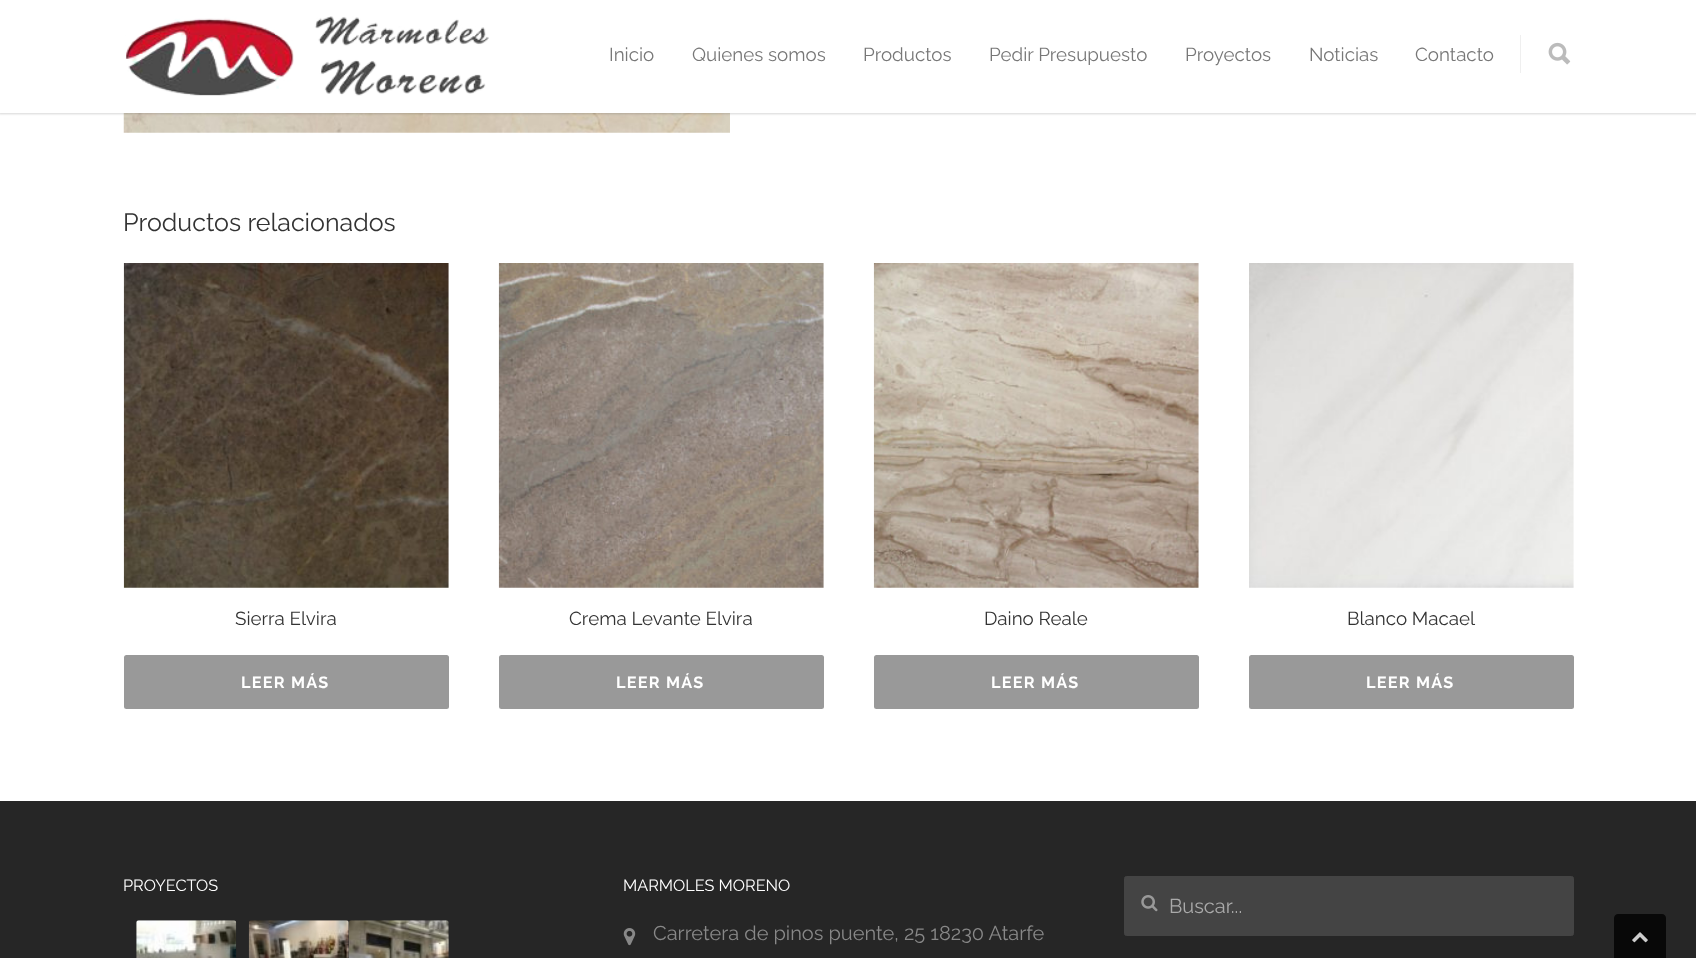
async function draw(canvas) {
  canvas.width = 1696;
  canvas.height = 958;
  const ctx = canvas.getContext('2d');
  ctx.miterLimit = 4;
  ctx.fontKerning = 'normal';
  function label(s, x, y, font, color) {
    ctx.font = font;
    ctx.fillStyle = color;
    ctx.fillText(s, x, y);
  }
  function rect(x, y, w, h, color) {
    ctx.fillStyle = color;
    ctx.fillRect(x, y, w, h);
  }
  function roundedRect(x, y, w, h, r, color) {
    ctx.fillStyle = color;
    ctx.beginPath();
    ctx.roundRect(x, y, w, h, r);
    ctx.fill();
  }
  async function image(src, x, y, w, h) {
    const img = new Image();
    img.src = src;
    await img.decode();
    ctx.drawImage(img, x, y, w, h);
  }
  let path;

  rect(0, 0, 1696, 958, '#fff');
  await image('assets/img3.png', 123, 113, 607, 20);
  ctx.fillStyle = '#00000029';
  ctx.filter = 'blur(1px)';
  ctx.beginPath();
  ctx.rect(-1, -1, 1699, 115);
  ctx.fill();
  ctx.filter = 'none';
  rect(0, 0, 1696, 113, '#fff');
  await image('assets/img1.png', 125, 16, 364, 80);
  label('Inicio', 609, 61, '18.75px Raleway', '#777');
  label('Quienes somos', 692, 61, '18.75px Raleway', '#777');
  label('Productos', 863, 61, '18.75px Raleway', '#777');
  label('Pedir Presupuesto', 989, 61, '18.75px Raleway', '#777');
  label('Proyectos', 1185, 61, '18.75px Raleway', '#777');
  label('Noticias', 1309, 61, '18.75px Raleway', '#777');
  label('Contacto', 1415, 61, '18.75px Raleway', '#777');
  rect(1520, 35, 1, 38, '#efefef');
  await image('assets/img2.png', 1548, 42, 23, 23);
  label('Productos relacionados', 123, 231, '25px Raleway', '#333');
  await image('assets/img4.png', 123, 263, 326, 325);
  label('Sierra Elvira', 235, 625, '18.75px Raleway', '#333');
  roundedRect(124, 655, 325, 54, 2.5, '#999');
  ctx.letterSpacing = '1.25px';
  label('LEER MÁS', 241, 688, 'bold 16.25px Raleway', '#fff');
  await image('assets/img5.png', 498, 263, 326, 325);
  ctx.letterSpacing = '0px';
  label('Crema Levante Elvira', 569, 625, '18.75px Raleway', '#333');
  roundedRect(499, 655, 325, 54, 2.5, '#999');
  ctx.letterSpacing = '1.25px';
  label('LEER MÁS', 616, 688, 'bold 16.25px Raleway', '#fff');
  await image('assets/img6.png', 873, 263, 326, 325);
  ctx.letterSpacing = '0px';
  label('Daino Reale', 984, 625, '18.75px Raleway', '#333');
  roundedRect(874, 655, 325, 54, 2.5, '#999');
  ctx.letterSpacing = '1.25px';
  label('LEER MÁS', 991, 688, 'bold 16.25px Raleway', '#fff');
  await image('assets/img7.png', 1249, 263, 325, 325);
  ctx.letterSpacing = '0px';
  label('Blanco Macael', 1347, 625, '18.75px Raleway', '#333');
  roundedRect(1249, 655, 325, 54, 2.5, '#999');
  ctx.letterSpacing = '1.25px';
  label('LEER MÁS', 1366, 688, 'bold 16.25px Raleway', '#fff');
  rect(0, 801, 1696, 157, '#262626');
  ctx.letterSpacing = '0px';
  label('PROYECTOS', 123, 891, '16.25px Raleway', '#fff');
  await image('assets/img8.png', 136, 920, 101, 38);
  await image('assets/img9.png', 248, 920, 101, 38);
  await image('assets/img10.png', 348, 920, 101, 38);
  label('MARMOLES MORENO', 623, 891, '16.25px Raleway', '#fff');
  await image('assets/img11.png', 623, 928, 13, 18);
  label('Carretera de pinos puente, 25 18230 Atarfe', 653, 940, '20px Raleway', '#888');
  ctx.fillStyle = '#444';
  ctx.beginPath();
  ctx.roundRect(1124.5, 876.5, 449, 59, 2);
  ctx.fill();
  ctx.strokeStyle = '#444';
  ctx.stroke();
  await image('assets/img12.png', 1141, 895, 17, 17);
  label('Buscar...', 1169, 913, '20px Raleway', '#aaa');
  ctx.fillStyle = '#080808';
  path = new Path2D('M1618 914H1662C1664 914 1666 916 1666 918V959H1614V918C1614 916 1616 914 1618 914Z');
  ctx.fill(path);
  await image('assets/img13.png', 1632, 932, 16, 11);
}

draw(document.querySelector('canvas'));
